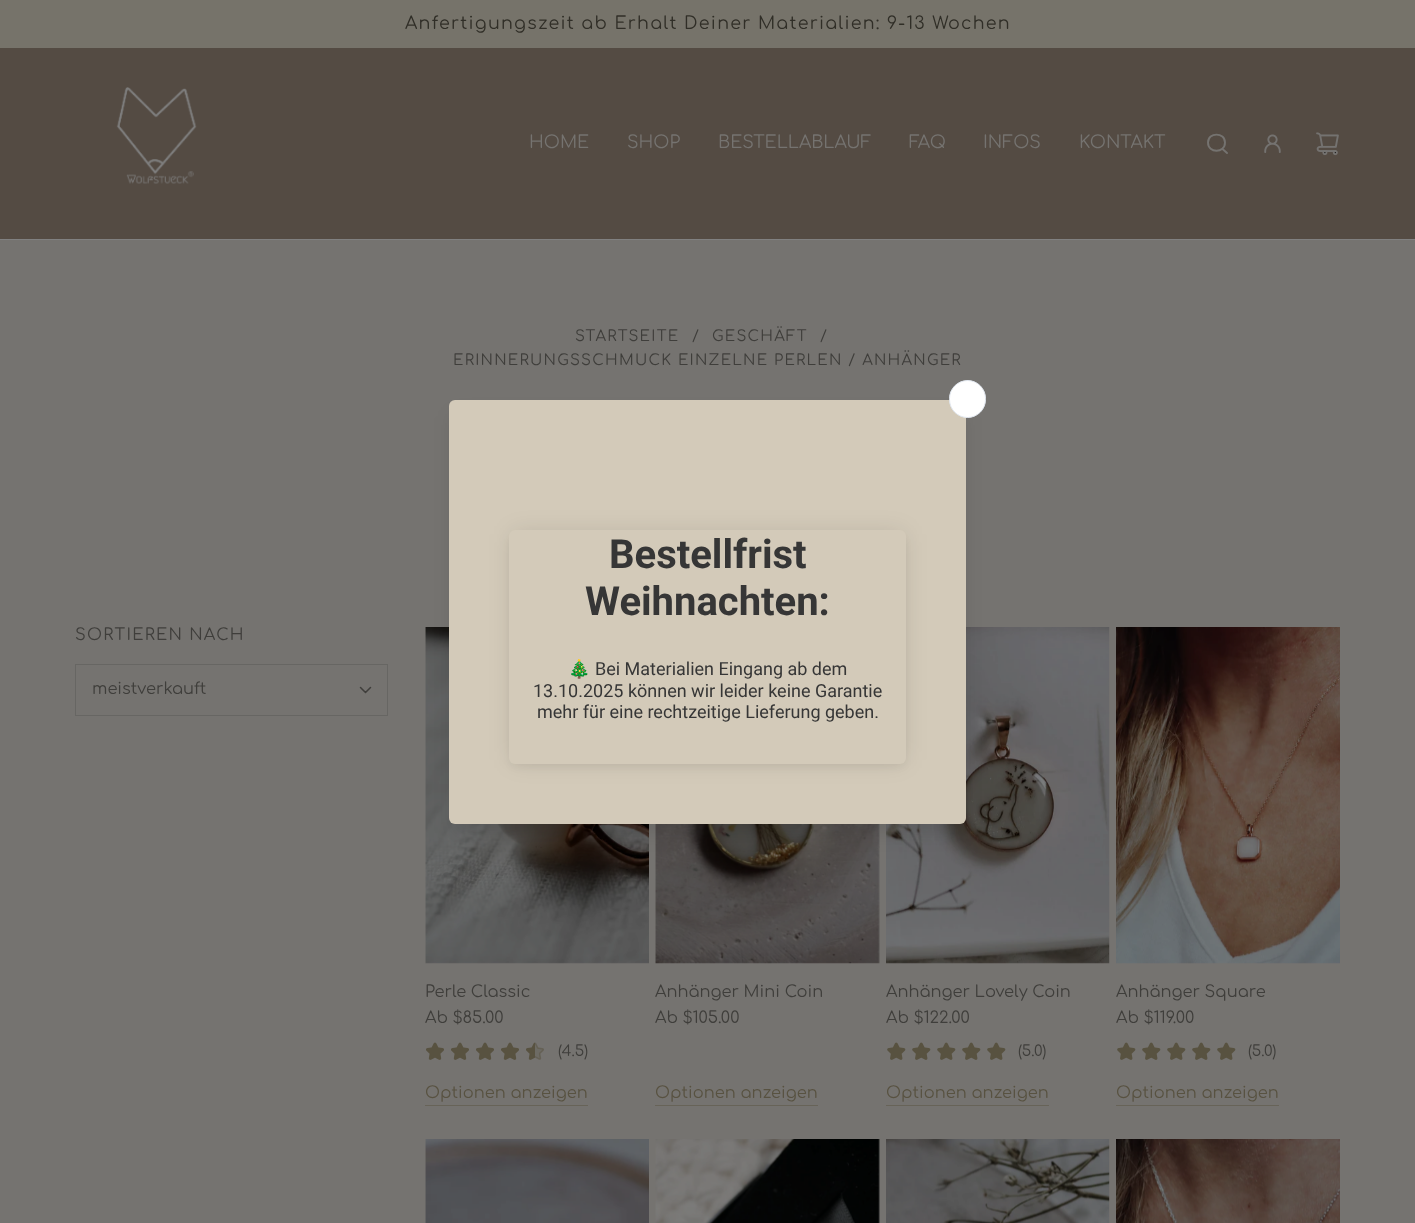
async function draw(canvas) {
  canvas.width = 1415;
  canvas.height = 1223;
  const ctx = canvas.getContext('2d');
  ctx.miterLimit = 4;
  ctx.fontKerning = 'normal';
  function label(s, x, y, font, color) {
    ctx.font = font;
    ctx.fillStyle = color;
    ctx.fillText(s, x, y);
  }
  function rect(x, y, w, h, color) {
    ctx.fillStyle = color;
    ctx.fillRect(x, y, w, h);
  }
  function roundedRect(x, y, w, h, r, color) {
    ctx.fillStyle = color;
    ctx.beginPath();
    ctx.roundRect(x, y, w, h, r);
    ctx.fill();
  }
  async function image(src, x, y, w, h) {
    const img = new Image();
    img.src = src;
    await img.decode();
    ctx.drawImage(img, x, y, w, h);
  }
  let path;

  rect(0, 0, 1415, 1223, '#757370');
  rect(0, 0, 1415, 48, '#76736a');
  ctx.letterSpacing = '1.25px';
  label('Anfertigungszeit ab Erhalt Deiner Materialien: 9-13 Wochen', 405, 29, '17.5px Comfortaa', '#302e27');
  rect(0, 48, 1415, 191, '#544b43');
  rect(0, 239, 1415, 1, '#808080');
  await image('assets/img1.png', 116, 87, 81, 97);
  ctx.letterSpacing = '0px';
  label('HOME', 529, 148, '17.5px Comfortaa', '#757370');
  label('SHOP', 627, 148, '17.5px Comfortaa', '#757370');
  label('BESTELLABLAUF', 718, 148, '17.5px Comfortaa', '#757370');
  label('FAQ', 909, 148, '17.5px Comfortaa', '#757370');
  label('INFOS', 983, 148, '17.5px Comfortaa', '#757370');
  label('KONTAKT', 1079, 148, '17.5px Comfortaa', '#757370');
  path = new Path2D('M1222.5 149L1227 153M1208 142.5C1208 153.5 1225 153.5 1225 142.5C1225 132 1208 132 1208 142.5Z');
  ctx.strokeStyle = '#757370';
  ctx.lineWidth = 1.9;
  ctx.lineCap = 'round';
  ctx.lineJoin = 'round';
  ctx.stroke(path);
  await image('assets/img2.png', 1264, 134, 17, 19);
  await image('assets/img3.png', 1316, 132, 23, 24);
  ctx.letterSpacing = '1.25px';
  label('STARTSEITE', 575, 341, '15px Comfortaa', '#3f3e3b');
  ctx.letterSpacing = '0px';
  label('/', 692, 341, '15px Comfortaa', '#3f3e3b');
  ctx.letterSpacing = '1.25px';
  label('GESCHÄFT', 712, 341, '15px Comfortaa', '#3f3e3b');
  ctx.letterSpacing = '0px';
  label('/', 820, 341, '15px Comfortaa', '#3f3e3b');
  ctx.letterSpacing = '1.25px';
  label('ERINNERUNGSSCHMUCK EINZELNE PERLEN / ANHÄNGER', 453, 365, '15px Comfortaa', '#3f3e3b');
  label('SORTIEREN NACH', 75, 640, '16.25px Comfortaa', '#3f3e3b');
  ctx.strokeStyle = '#676663';
  ctx.lineWidth = 1;
  ctx.lineJoin = 'miter';
  ctx.strokeRect(75.5, 664.5, 312, 51);
  ctx.letterSpacing = '0px';
  label('meistverkauft', 92, 694, '16.25px Comfortaa', '#3f3e3b');
  path = new Path2D('M360.5 687.5L365.5 692.5L370.5 687.5');
  ctx.strokeStyle = '#3f3e3b';
  ctx.lineWidth = 1.5;
  ctx.lineJoin = 'round';
  ctx.stroke(path);
  await image('assets/img4.png', 425, 627, 224, 337);
  label('Perle Classic', 425, 997, '16.25px Comfortaa', '#3f3e3b');
  label('Ab $85.00', 425, 1023, '16.25px Comfortaa', '#3f3e3b');
  await image('assets/img5.png', 426, 1042, 18, 18);
  await image('assets/img5.png', 451, 1042, 18, 18);
  await image('assets/img5.png', 476, 1042, 18, 18);
  await image('assets/img5.png', 501, 1042, 18, 18);
  await image('assets/img6.png', 526, 1042, 18, 18);
  label('(4.5)', 558, 1056, '15px Comfortaa', '#3f3e3b');
  rect(425, 1105, 163, 1, '#676358');
  label('Optionen anzeigen', 425, 1098, '16.25px Comfortaa', '#585241');
  await image('assets/img7.png', 655, 824, 225, 140);
  label('Anhänger Mini Coin', 655, 997, '16.25px Comfortaa', '#3f3e3b');
  label('Ab $105.00', 655, 1023, '16.25px Comfortaa', '#3f3e3b');
  rect(655, 1105, 163, 1, '#676358');
  label('Optionen anzeigen', 655, 1098, '16.25px Comfortaa', '#585241');
  await image('assets/img8.png', 886, 627, 224, 337);
  label('Anhänger Lovely Coin', 886, 997, '16.25px Comfortaa', '#3f3e3b');
  label('Ab $122.00', 886, 1023, '16.25px Comfortaa', '#3f3e3b');
  await image('assets/img9.png', 887, 1042, 19, 18);
  await image('assets/img9.png', 912, 1042, 19, 18);
  await image('assets/img9.png', 937, 1042, 19, 18);
  await image('assets/img9.png', 962, 1042, 19, 18);
  await image('assets/img9.png', 987, 1042, 19, 18);
  label('(5.0)', 1018, 1056, '15px Comfortaa', '#3f3e3b');
  rect(886, 1105, 163, 1, '#676358');
  label('Optionen anzeigen', 886, 1098, '16.25px Comfortaa', '#585241');
  await image('assets/img10.png', 1116, 627, 224, 337);
  label('Anhänger Square', 1116, 997, '16.25px Comfortaa', '#3f3e3b');
  label('Ab $119.00', 1116, 1023, '16.25px Comfortaa', '#3f3e3b');
  await image('assets/img9.png', 1117, 1042, 19, 18);
  await image('assets/img9.png', 1142, 1042, 19, 18);
  await image('assets/img9.png', 1167, 1042, 19, 18);
  await image('assets/img9.png', 1192, 1042, 19, 18);
  await image('assets/img9.png', 1217, 1042, 19, 18);
  label('(5.0)', 1248, 1056, '15px Comfortaa', '#3f3e3b');
  rect(1116, 1105, 163, 1, '#676358');
  label('Optionen anzeigen', 1116, 1098, '16.25px Comfortaa', '#585241');
  await image('assets/img11.png', 425, 1139, 224, 84);
  await image('assets/img12.png', 655, 1139, 225, 84);
  await image('assets/img13.png', 886, 1139, 224, 84);
  await image('assets/img14.png', 1116, 1139, 224, 84);
  ctx.fillStyle = '#0000001a';
  ctx.filter = 'blur(9.5px)';
  ctx.beginPath();
  ctx.roundRect(453, 416, 510, 417, 2.5);
  ctx.fill();
  ctx.filter = 'none';
  roundedRect(449, 400, 517, 424, 6, '#d3cab9');
  ctx.fillStyle = '#fff';
  ctx.beginPath();
  ctx.roundRect(949.5, 380.5, 36, 37, 18);
  ctx.fill();
  ctx.strokeStyle = '#e2e8f0';
  ctx.lineWidth = 1;
  ctx.lineJoin = 'miter';
  ctx.stroke();
  ctx.fillStyle = '#0000000d';
  ctx.filter = 'blur(4px)';
  ctx.beginPath();
  ctx.roundRect(511, 538, 393, 228, 4);
  ctx.fill();
  ctx.filter = 'none';
  ctx.fillStyle = '#0000001f';
  ctx.filter = 'blur(12.5px)';
  ctx.beginPath();
  ctx.roundRect(513, 534, 390, 226, 2.5);
  ctx.fill();
  ctx.filter = 'none';
  roundedRect(509, 530, 397, 234, 6, '#d3cab9');
  label('Bestellfrist', 609, 568, 'bold 40px Roboto', '#363636');
  label('Weihnachten:', 585, 615, 'bold 40px Roboto', '#363636');
  label('🎄', 568, 675, '18px Noto Color Emoji', '#363636');
  label('Bei Materialien Eingang ab dem', 595, 675, '18px Roboto', '#363636');
  label('13.10.2025 können wir leider keine Garantie', 533, 697, '18px Roboto', '#363636');
  label('mehr für eine rechtzeitige Lieferung geben.', 537, 718, '18px Roboto', '#363636');
}

draw(document.querySelector('canvas'));
